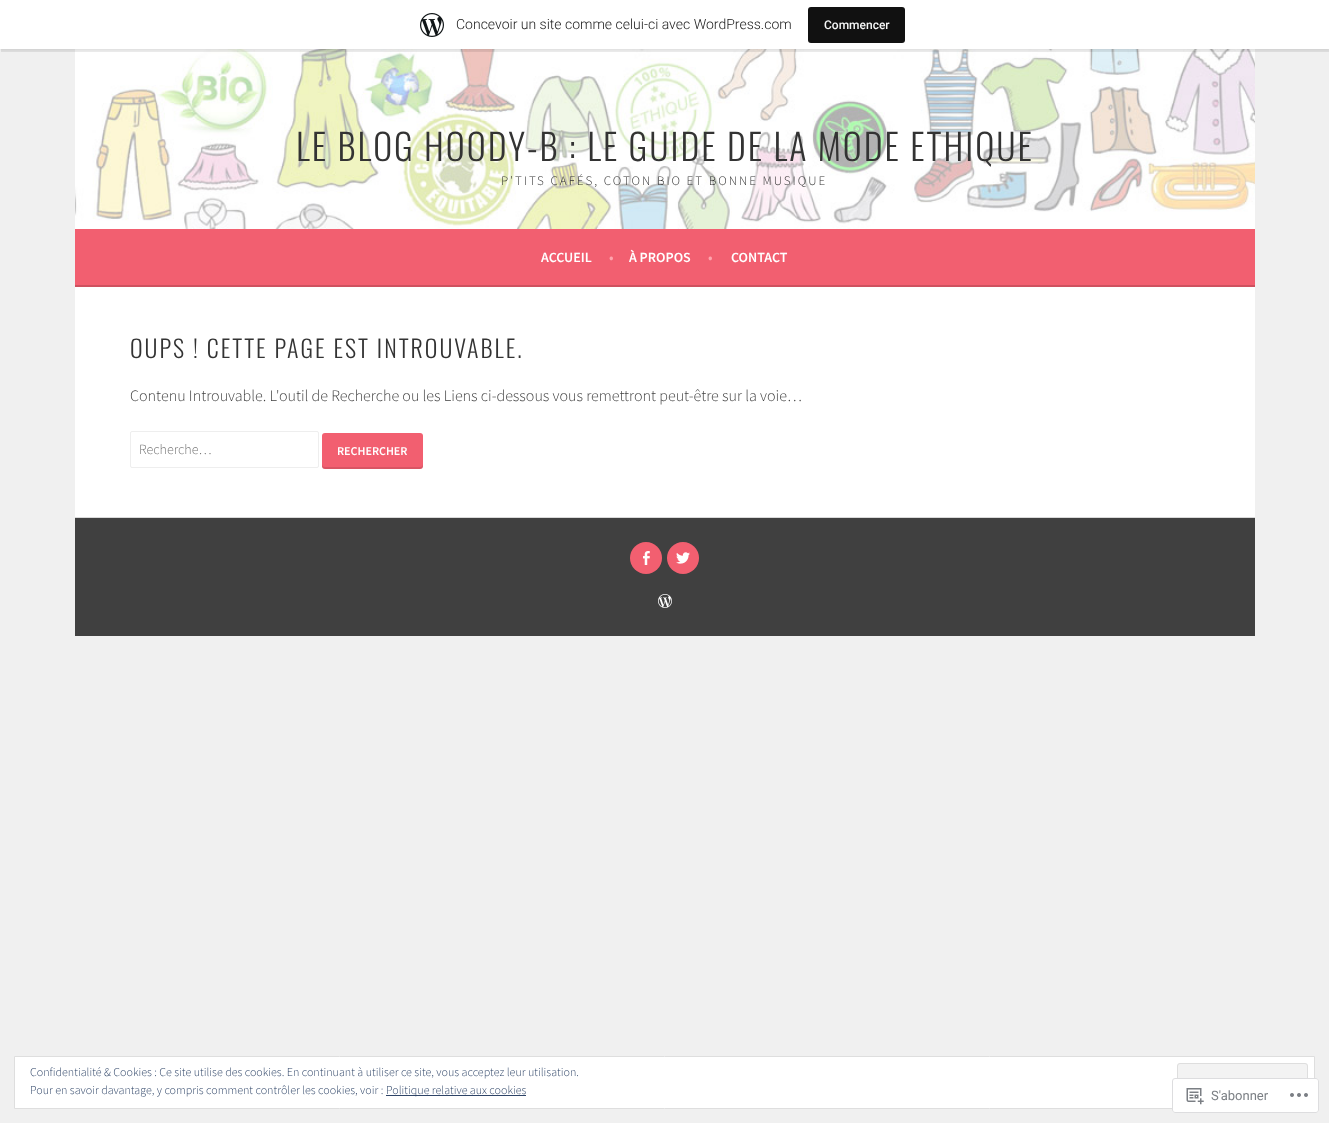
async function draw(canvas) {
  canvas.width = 1329;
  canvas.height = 1123;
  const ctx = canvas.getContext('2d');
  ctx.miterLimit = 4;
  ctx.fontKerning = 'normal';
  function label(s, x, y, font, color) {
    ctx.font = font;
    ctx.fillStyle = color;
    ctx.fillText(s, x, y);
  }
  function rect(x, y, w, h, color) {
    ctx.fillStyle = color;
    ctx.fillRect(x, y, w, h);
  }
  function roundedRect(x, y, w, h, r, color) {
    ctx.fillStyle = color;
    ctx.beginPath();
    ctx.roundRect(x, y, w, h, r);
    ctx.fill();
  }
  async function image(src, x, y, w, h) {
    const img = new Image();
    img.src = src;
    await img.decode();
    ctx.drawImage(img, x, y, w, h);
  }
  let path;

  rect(0, 0, 1329, 1123, '#f0f0f0');
  await image('assets/img2.png', 75, 49, 1180, 180);
  ctx.fillStyle = '#0000000d';
  ctx.filter = 'blur(1px)';
  ctx.beginPath();
  ctx.rect(0, 1, 1329, 49);
  ctx.fill();
  ctx.filter = 'none';
  ctx.fillStyle = '#00000014';
  path = new Path2D('M1 49V52H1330V3H1329V49Z');
  ctx.fill(path);
  rect(0, 0, 1329, 49, '#fff');
  await image('assets/img1.png', 420, 13, 24, 24);
  label('Concevoir un site comme celui-ci avec WordPress.com', 456, 29, '300 14px Roboto', '#171717');
  roundedRect(808, 7, 97, 36, 3, '#111');
  label('Commencer', 824, 29, '500 12px Roboto', '#f6f7f7');
  ctx.letterSpacing = '2px';
  label('LE BLOG HOODY-B : LE GUIDE DE LA MODE ETHIQUE', 296, 161, '300 36px Oswald', '#333');
  label('P\'TITS CAFÉS, COTON BIO ET BONNE MUSIQUE', 501, 185, '300 13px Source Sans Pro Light', '#333');
  rect(75, 229, 1180, 56, '#f25f70');
  rect(75, 285, 1180, 2, '#ce515f');
  ctx.letterSpacing = '0px';
  label('ACCUEIL', 541, 262, '600 14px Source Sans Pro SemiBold', '#fff');
  label('•', 609, 262, '600 14px Source Sans Pro SemiBold', '#ffa4ad');
  label('À PROPOS', 629, 262, '600 14px Source Sans Pro SemiBold', '#fff');
  label('•', 708, 262, '600 14px Source Sans Pro SemiBold', '#ffa4ad');
  label('CONTACT', 731, 262, '600 14px Source Sans Pro SemiBold', '#fff');
  rect(75, 287, 1180, 230, '#fff');
  ctx.letterSpacing = '2px';
  label('OUPS ! CETTE PAGE EST INTROUVABLE.', 130, 358, '300 24px Oswald', '#333');
  ctx.letterSpacing = '0px';
  label('Contenu Introuvable. L\'outil de Recherche ou les Liens ci-dessous vous remettront peut-être sur la voie…', 130, 401, '300 16px Source Sans Pro Light', '#404040');
  ctx.beginPath();
  ctx.roundRect(130.5, 431.5, 188, 36, 1.5);
  ctx.strokeStyle = '#eee';
  ctx.stroke();
  label('Recherche…', 139, 454, '300 14px Source Sans Pro Light', '#757575');
  roundedRect(322, 433, 101, 36, 3, '#f25f70');
  ctx.fillStyle = '#0000001a';
  path = new Path2D('M322 464V466C322 468 323 469 325 469H420C422 469 423 468 423 466V464C423 466 422 467 420 467H325C323 467 322 466 322 464Z');
  ctx.fill(path);
  label('RECHERCHER', 337, 455, '600 12px Source Sans Pro SemiBold', '#fff');
  rect(75, 518, 1180, 118, '#404040');
  rect(75, 517, 1180, 1, '#d9d9d9');
  ctx.fillStyle = '#f25f70';
  ctx.beginPath();
  ctx.arc(646, 558, 16, 0, 2 * Math.PI);
  ctx.fill();
  await image('assets/img3.png', 643, 551, 7, 14);
  ctx.beginPath();
  ctx.arc(683, 558, 16, 0, 2 * Math.PI);
  ctx.fill();
  await image('assets/img4.png', 676, 552, 14, 12);
  await image('assets/img5.png', 658, 594, 14, 14);
  ctx.fillStyle = '#fff';
  ctx.beginPath();
  ctx.rect(14.5, 1056.5, 1300, 52);
  ctx.fill();
  ctx.strokeStyle = '#dedede';
  ctx.stroke();
  label('Confidentialité & Cookies : Ce site utilise des cookies. En continuant à utiliser ce site, vous acceptez leur utilisation.', 30, 1076, '300 12px Source Sans Pro Light', '#2e4467');
  roundedRect(1177, 1063, 131, 39, 3, '#f3f3f3');
  ctx.fillStyle = '#dbdbdb';
  path = new Path2D('M1178 1097V1099C1178 1100 1179 1101 1180 1101H1305C1306 1101 1307 1100 1307 1099V1097C1307 1098 1306 1099 1305 1099H1180C1179 1099 1178 1098 1178 1097Z');
  ctx.fill(path);
  ctx.beginPath();
  ctx.roundRect(1177.5, 1063.5, 130, 38, 2.5);
  ctx.stroke();
  label('Pour en savoir davantage, y compris comment contrôler les cookies, voir :', 30, 1094, '300 12px Source Sans Pro Light', '#2e4467');
  rect(386, 1095, 140, 1, '#2e4467');
  label('Politique relative aux cookies', 386, 1094, '300 12px Source Sans Pro Light', '#2e4467');
  roundedRect(1172, 1078, 147, 35, 3, '#fffffffa');
  ctx.beginPath();
  ctx.roundRect(1172.5, 1078.5, 146, 34, 2.5);
  ctx.strokeStyle = '#dcdcdefa';
  ctx.stroke();
  await image('assets/img6.png', 1186, 1088, 18, 17);
  label('S\'abonner', 1211, 1100, '13px Roboto', '#7b7f84');
  await image('assets/img7.png', 1290, 1093, 18, 4);
}

draw(document.querySelector('canvas'));
